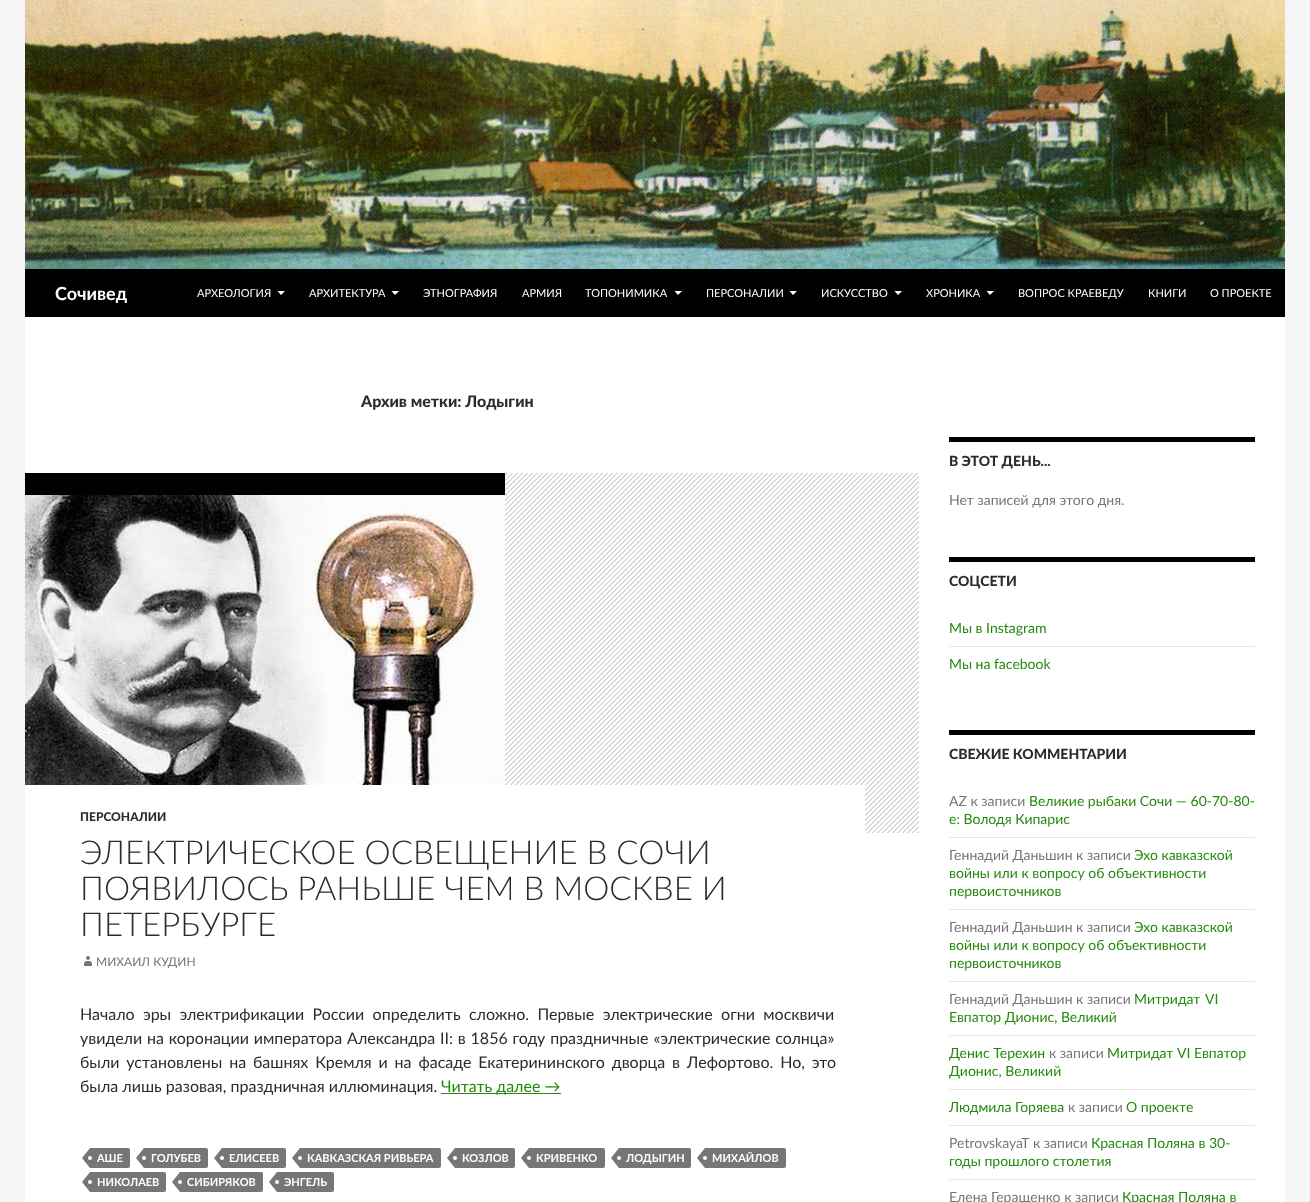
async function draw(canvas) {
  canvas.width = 1310;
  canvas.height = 1202;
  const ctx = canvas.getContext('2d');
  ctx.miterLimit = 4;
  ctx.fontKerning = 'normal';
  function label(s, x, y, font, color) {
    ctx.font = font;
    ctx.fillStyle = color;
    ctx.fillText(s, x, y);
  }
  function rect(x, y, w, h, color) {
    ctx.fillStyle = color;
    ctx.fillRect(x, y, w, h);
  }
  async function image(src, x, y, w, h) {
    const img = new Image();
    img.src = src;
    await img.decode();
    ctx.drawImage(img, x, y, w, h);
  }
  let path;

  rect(0, 0, 1310, 1202, '#f5f5f5');
  rect(25, 317, 1260, 885, '#fff');
  await image('assets/img1.png', 25, 0, 1260, 269);
  rect(25, 269, 1260, 48, '#000');
  label('Сочивед', 55, 300, 'bold 18px Lato', '#fff');
  label('АРХЕОЛОГИЯ', 197, 297, '11px Lato', '#fff');
  path = new Path2D('M277.5 291L281 295L285 291Z');
  ctx.fill(path);
  label('АРХИТЕКТУРА', 309, 297, '11px Lato', '#fff');
  path = new Path2D('M391.5 291L395 295L399 291Z');
  ctx.fill(path);
  label('ЭТНОГРАФИЯ', 423, 297, '11px Lato', '#fff');
  label('АРМИЯ', 522, 297, '11px Lato', '#fff');
  label('ТОПОНИМИКА', 585, 297, '11px Lato', '#fff');
  path = new Path2D('M674.5 291L678 295L682 291Z');
  ctx.fill(path);
  label('ПЕРСОНАЛИИ', 706, 297, '11px Lato', '#fff');
  path = new Path2D('M789.5 291L793 295L797 291Z');
  ctx.fill(path);
  label('ИСКУССТВО', 821, 297, '11px Lato', '#fff');
  path = new Path2D('M894.5 291L898 295L902 291Z');
  ctx.fill(path);
  label('ХРОНИКА', 926, 297, '11px Lato', '#fff');
  path = new Path2D('M986.5 291L990 295L994 291Z');
  ctx.fill(path);
  label('ВОПРОС КРАЕВЕДУ', 1018, 297, '11px Lato', '#fff');
  label('КНИГИ', 1148, 297, '11px Lato', '#fff');
  label('О ПРОЕКТЕ', 1210, 297, '11px Lato', '#fff');
  label('Архив метки: Лодыгин', 361, 407, '900 16px Lato', '#2b2b2b');
  rect(505, 473, 414, 360, '#b2b2b2');
  await image('assets/img2.png', 505, 473, 414, 360);
  await image('assets/img3.png', 25, 473, 480, 312);
  rect(505, 785, 360, 48, '#fff');
  label('ПЕРСОНАЛИИ', 80, 821, '900 12px Lato', '#2b2b2b');
  label('ЭЛЕКТРИЧЕСКОЕ ОСВЕЩЕНИЕ В СОЧИ', 80, 864, '300 33px Lato', '#2b2b2b');
  label('ПОЯВИЛОСЬ РАНЬШЕ ЧЕМ В МОСКВЕ И', 80, 900, '300 33px Lato', '#2b2b2b');
  label('ПЕТЕРБУРГЕ', 80, 936, '300 33px Lato', '#2b2b2b');
  await image('assets/img4.png', 84, 956, 8, 10);
  label('МИХАИЛ КУДИН', 96, 966, '12px Lato', '#767676');
  ctx.wordSpacing = '4.25px';
  label('Начало эры электрификации России определить сложно. Первые электрические огни москвичи', 80, 1020, '16px Lato', '#2b2b2b');
  ctx.wordSpacing = '0.75px';
  label('увидели на коронации императора Александра II: в 1856 году праздничные «электрические солнца»', 80, 1044, '16px Lato', '#2b2b2b');
  ctx.wordSpacing = '2.75px';
  label('были установлены на башнях Кремля и на фасаде Екатерининского дворца в Лефортово. Но, это', 80, 1068, '16px Lato', '#2b2b2b');
  ctx.wordSpacing = '0px';
  label('была лишь разовая, праздничная иллюминация.', 80, 1092, '16px Lato', '#2b2b2b');
  rect(441, 1093, 120, 1, '#24890d');
  label('Читать далее →', 441, 1092, '16px Lato', '#24890d');
  ctx.fillStyle = '#767676';
  ctx.beginPath();
  ctx.roundRect(90, 1148, 40, 20, [0, 2, 2, 0]);
  ctx.fill();
  path = new Path2D('M90 1148V1168L82 1158Z');
  ctx.fill(path);
  label('АШЕ', 97, 1162, 'bold 11px Lato', '#fff');
  ctx.beginPath();
  ctx.arc(90, 1158, 2, 0, 2 * Math.PI);
  ctx.fill();
  ctx.fillStyle = '#767676';
  ctx.beginPath();
  ctx.roundRect(144, 1148, 64, 20, [0, 2, 2, 0]);
  ctx.fill();
  path = new Path2D('M144 1148V1168L136 1158Z');
  ctx.fill(path);
  label('ГОЛУБЕВ', 151, 1162, 'bold 11px Lato', '#fff');
  ctx.beginPath();
  ctx.arc(144, 1158, 2, 0, 2 * Math.PI);
  ctx.fill();
  ctx.fillStyle = '#767676';
  ctx.beginPath();
  ctx.roundRect(222, 1148, 64, 20, [0, 2, 2, 0]);
  ctx.fill();
  path = new Path2D('M222 1148V1168L214 1158Z');
  ctx.fill(path);
  label('ЕЛИСЕЕВ', 229, 1162, 'bold 11px Lato', '#fff');
  ctx.beginPath();
  ctx.arc(222, 1158, 2, 0, 2 * Math.PI);
  ctx.fill();
  ctx.fillStyle = '#767676';
  ctx.beginPath();
  ctx.roundRect(300, 1148, 141, 20, [0, 2, 2, 0]);
  ctx.fill();
  path = new Path2D('M300 1148V1168L292 1158Z');
  ctx.fill(path);
  label('КАВКАЗСКАЯ РИВЬЕРА', 307, 1162, 'bold 11px Lato', '#fff');
  ctx.beginPath();
  ctx.arc(300, 1158, 2, 0, 2 * Math.PI);
  ctx.fill();
  ctx.fillStyle = '#767676';
  ctx.beginPath();
  ctx.roundRect(455, 1148, 60, 20, [0, 2, 2, 0]);
  ctx.fill();
  path = new Path2D('M455 1148V1168L447 1158Z');
  ctx.fill(path);
  label('КОЗЛОВ', 462, 1162, 'bold 11px Lato', '#fff');
  ctx.beginPath();
  ctx.arc(455, 1158, 2, 0, 2 * Math.PI);
  ctx.fill();
  ctx.fillStyle = '#767676';
  ctx.beginPath();
  ctx.roundRect(529, 1148, 76, 20, [0, 2, 2, 0]);
  ctx.fill();
  path = new Path2D('M529 1148V1168L521 1158Z');
  ctx.fill(path);
  label('КРИВЕНКО', 536, 1162, 'bold 11px Lato', '#fff');
  ctx.beginPath();
  ctx.arc(529, 1158, 2, 0, 2 * Math.PI);
  ctx.fill();
  ctx.fillStyle = '#767676';
  ctx.beginPath();
  ctx.roundRect(619, 1148, 72, 20, [0, 2, 2, 0]);
  ctx.fill();
  path = new Path2D('M619 1148V1168L611 1158Z');
  ctx.fill(path);
  label('ЛОДЫГИН', 626, 1162, 'bold 11px Lato', '#fff');
  ctx.beginPath();
  ctx.arc(619, 1158, 2, 0, 2 * Math.PI);
  ctx.fill();
  ctx.fillStyle = '#767676';
  ctx.beginPath();
  ctx.roundRect(705, 1148, 81, 20, [0, 2, 2, 0]);
  ctx.fill();
  path = new Path2D('M705 1148V1168L697 1158Z');
  ctx.fill(path);
  label('МИХАЙЛОВ', 712, 1162, 'bold 11px Lato', '#fff');
  ctx.beginPath();
  ctx.arc(705, 1158, 2, 0, 2 * Math.PI);
  ctx.fill();
  ctx.fillStyle = '#767676';
  ctx.beginPath();
  ctx.roundRect(90, 1172, 76, 20, [0, 2, 2, 0]);
  ctx.fill();
  path = new Path2D('M90 1172V1192L82 1182Z');
  ctx.fill(path);
  label('НИКОЛАЕВ', 97, 1186, 'bold 11px Lato', '#fff');
  ctx.beginPath();
  ctx.arc(90, 1182, 2, 0, 2 * Math.PI);
  ctx.fill();
  ctx.fillStyle = '#767676';
  ctx.beginPath();
  ctx.roundRect(180, 1172, 83, 20, [0, 2, 2, 0]);
  ctx.fill();
  path = new Path2D('M180 1172V1192L172 1182Z');
  ctx.fill(path);
  label('СИБИРЯКОВ', 187, 1186, 'bold 11px Lato', '#fff');
  ctx.beginPath();
  ctx.arc(180, 1182, 2, 0, 2 * Math.PI);
  ctx.fill();
  ctx.fillStyle = '#767676';
  ctx.beginPath();
  ctx.roundRect(277, 1172, 57, 20, [0, 2, 2, 0]);
  ctx.fill();
  path = new Path2D('M277 1172V1192L269 1182Z');
  ctx.fill(path);
  label('ЭНГЕЛЬ', 284, 1186, 'bold 11px Lato', '#fff');
  ctx.beginPath();
  ctx.arc(277, 1182, 2, 0, 2 * Math.PI);
  ctx.fill();
  rect(949, 437, 306, 5, '#000');
  label('В ЭТОТ ДЕНЬ...', 949, 466, '900 14px Lato', '#2b2b2b');
  label('Нет записей для этого дня.', 949, 505, '14px Lato', '#767676');
  rect(949, 557, 306, 5, '#000');
  label('СОЦСЕТИ', 949, 586, '900 14px Lato', '#2b2b2b');
  label('Мы в Instagram', 949, 633, '14px Lato', '#24890d');
  rect(949, 646, 306, 1, '#e6e6e6');
  label('Мы на facebook', 949, 669, '14px Lato', '#24890d');
  rect(949, 730, 306, 5, '#000');
  label('СВЕЖИЕ КОММЕНТАРИИ', 949, 759, '900 14px Lato', '#2b2b2b');
  label('AZ к записи', 949, 806, '14px Lato', '#767676');
  label('Великие рыбаки Сочи — 60-70-80-', 1029, 806, '14px Lato', '#24890d');
  label('е: Володя Кипарис', 949, 824, '14px Lato', '#24890d');
  rect(949, 837, 306, 1, '#e6e6e6');
  label('Геннадий Даньшин к записи', 949, 860, '14px Lato', '#767676');
  label('Эхо кавказской', 1134, 860, '14px Lato', '#24890d');
  label('войны или к вопросу об объективности', 949, 878, '14px Lato', '#24890d');
  label('первоисточников', 949, 896, '14px Lato', '#24890d');
  rect(949, 909, 306, 1, '#e6e6e6');
  label('Геннадий Даньшин к записи', 949, 932, '14px Lato', '#767676');
  label('Эхо кавказской', 1134, 932, '14px Lato', '#24890d');
  label('войны или к вопросу об объективности', 949, 950, '14px Lato', '#24890d');
  label('первоисточников', 949, 968, '14px Lato', '#24890d');
  rect(949, 981, 306, 1, '#e6e6e6');
  label('Геннадий Даньшин к записи', 949, 1004, '14px Lato', '#767676');
  ctx.wordSpacing = '1px';
  label('Митридат VI', 1134, 1004, '14px Lato', '#24890d');
  ctx.wordSpacing = '0px';
  label('Евпатор Дионис, Великий', 949, 1022, '14px Lato', '#24890d');
  rect(949, 1035, 306, 1, '#e6e6e6');
  label('Денис Терехин', 949, 1058, '14px Lato', '#24890d');
  label('к записи', 1049, 1058, '14px Lato', '#767676');
  label('Митридат VI Евпатор', 1107, 1058, '14px Lato', '#24890d');
  label('Дионис, Великий', 949, 1076, '14px Lato', '#24890d');
  rect(949, 1089, 306, 1, '#e6e6e6');
  label('Людмила Горяева', 949, 1112, '14px Lato', '#24890d');
  label('к записи', 1068, 1112, '14px Lato', '#767676');
  label('О проекте', 1126, 1112, '14px Lato', '#24890d');
  rect(949, 1125, 306, 1, '#e6e6e6');
  label('PetrovskayaT', 949, 1148, '14px Lato', '#767676');
  label('к записи', 1033, 1148, '14px Lato', '#767676');
  label('Красная Поляна в 30-', 1091, 1148, '14px Lato', '#24890d');
  label('годы прошлого столетия', 949, 1166, '14px Lato', '#24890d');
  rect(949, 1179, 306, 1, '#e6e6e6');
  label('Елена Геращенко к записи', 949, 1202, '14px Lato', '#767676');
  label('Красная Поляна в', 1122, 1202, '14px Lato', '#24890d');
}

draw(document.querySelector('canvas'));
